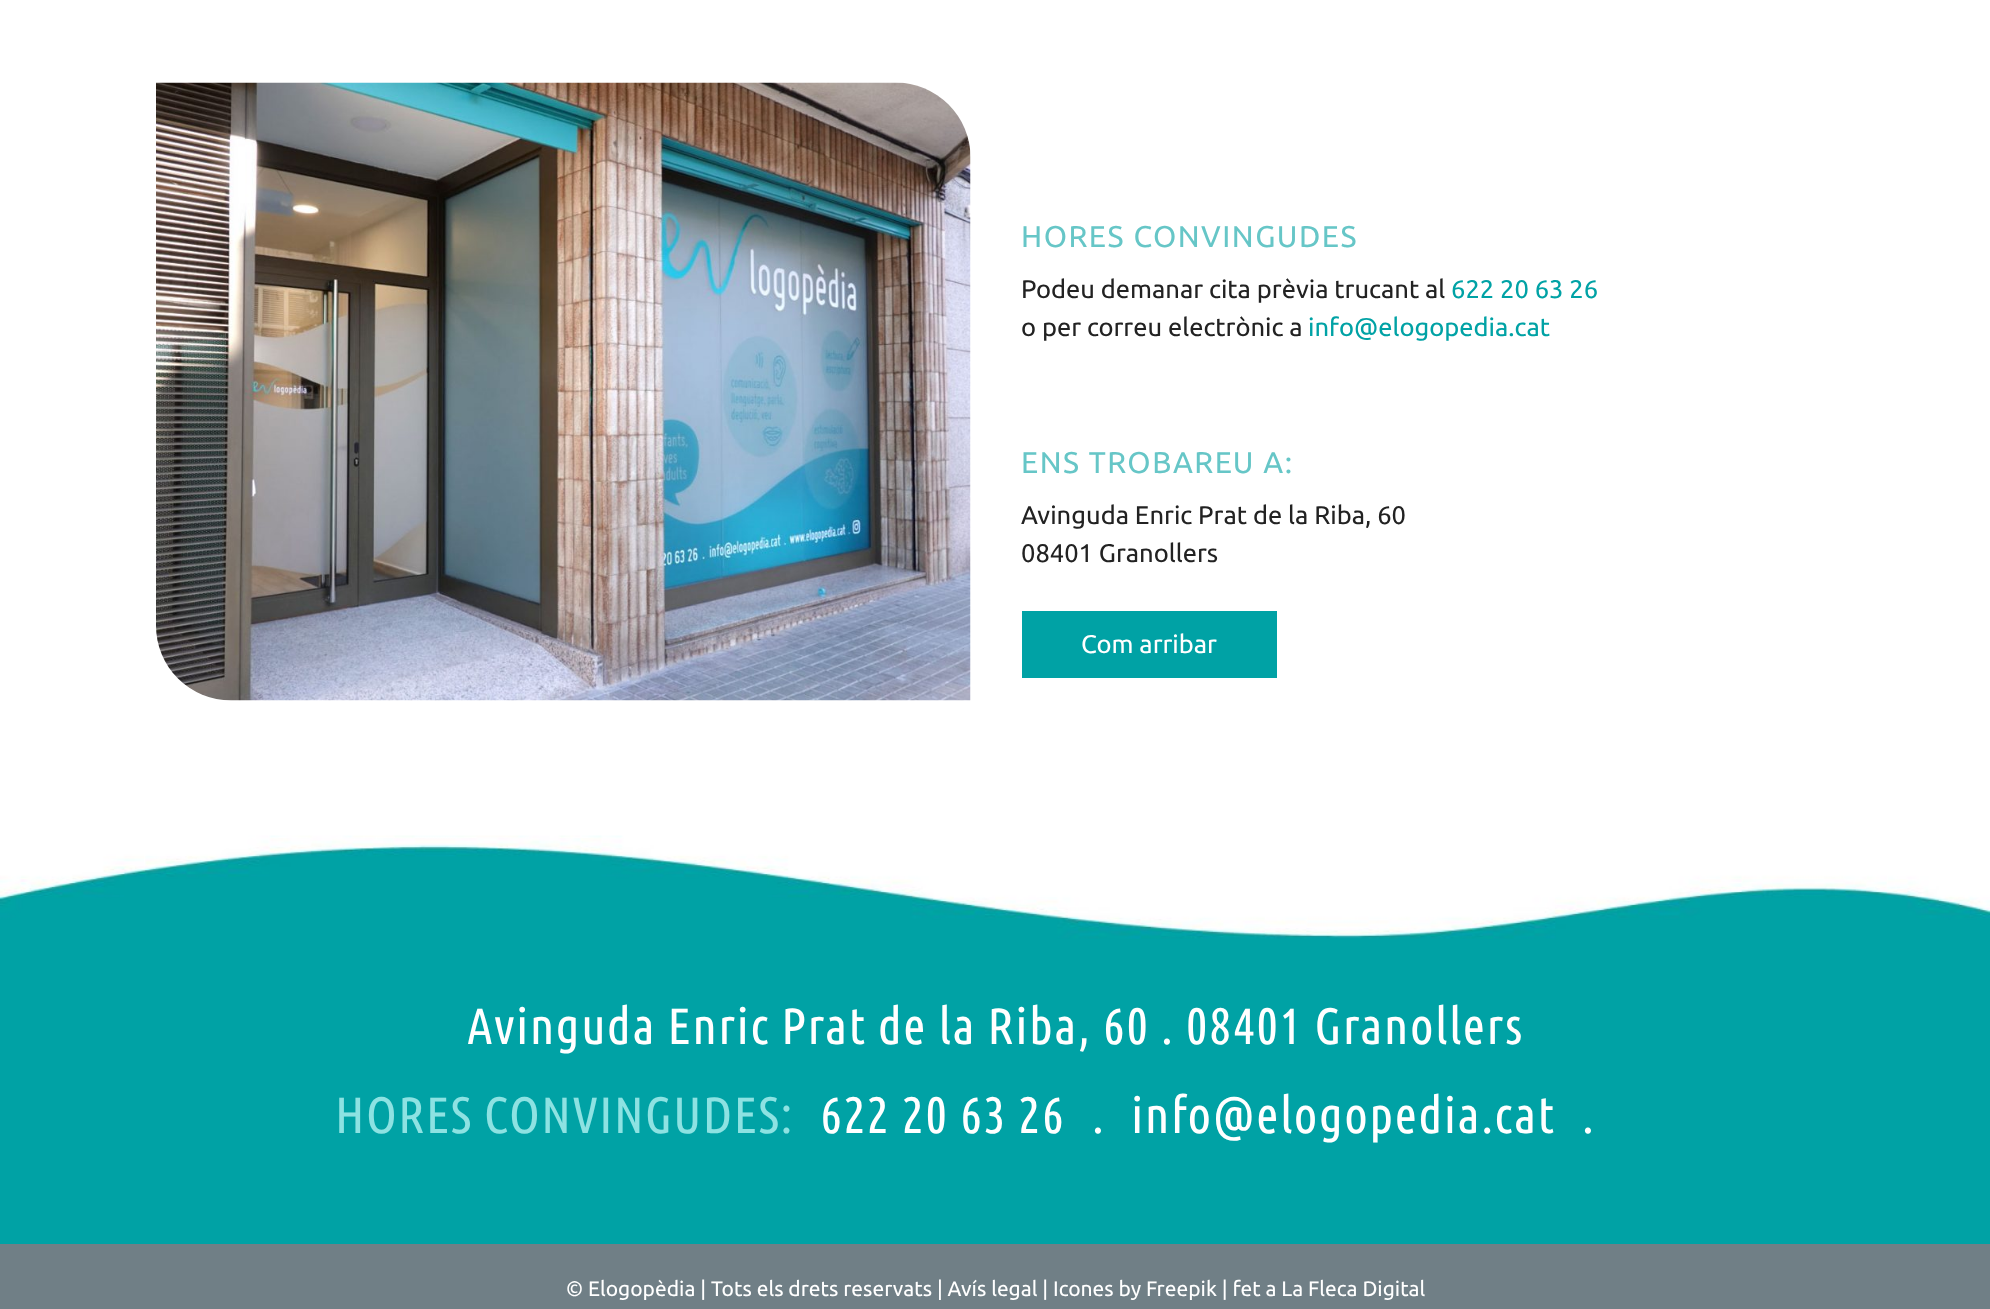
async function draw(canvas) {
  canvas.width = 1990;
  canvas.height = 1309;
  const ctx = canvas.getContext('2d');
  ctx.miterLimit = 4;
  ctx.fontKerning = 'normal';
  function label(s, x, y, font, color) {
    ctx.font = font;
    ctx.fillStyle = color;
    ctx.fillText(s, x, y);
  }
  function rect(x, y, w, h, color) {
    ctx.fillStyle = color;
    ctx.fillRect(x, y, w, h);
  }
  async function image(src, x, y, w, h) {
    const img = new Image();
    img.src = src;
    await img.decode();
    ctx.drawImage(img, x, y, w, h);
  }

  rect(0, 0, 1990, 1309, '#fff');
  await image('assets/img1.png', 156, 82, 815, 619);
  ctx.letterSpacing = '1.5px';
  label('HORES CONVINGUDES', 1021, 247, '30px Ubuntu', '#66c6c7');
  ctx.letterSpacing = '0px';
  label('Podeu demanar cita prèvia trucant al', 1021, 298, '25.5px Ubuntu', '#222');
  label('622 20 63 26', 1451, 298, '25.5px Ubuntu', '#00a2a5');
  label('o per correu electrònic a', 1021, 336, '25.5px Ubuntu', '#222');
  label('info@elogopedia.cat', 1308, 336, '25.5px Ubuntu', '#00a2a5');
  ctx.letterSpacing = '1.5px';
  label('ENS TROBAREU A:', 1021, 473, '30px Ubuntu', '#66c6c7');
  ctx.letterSpacing = '0px';
  label('Avinguda Enric Prat de la Riba, 60', 1021, 524, '25.5px Ubuntu', '#222');
  label('08401 Granollers', 1021, 562, '25.5px Ubuntu', '#222');
  rect(1022, 611, 255, 67, '#00a2a5');
  label('Com arribar', 1081, 653, '25.5px Ubuntu', '#fff');
  rect(0, 939, 1990, 305, '#00a2a5');
  await image('assets/img2.png', 0, 835, 1990, 104);
  ctx.letterSpacing = '1.5px';
  label('Avinguda Enric Prat de la Riba, 60 . 08401 Granollers', 467, 1044, '51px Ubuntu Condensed', '#fff');
  label('HORES CONVINGUDES:', 335, 1133, '51px Ubuntu Condensed', '#8de2e2');
  label('622 20 63 26', 820, 1133, '51px Ubuntu Condensed', '#fff');
  label('.', 1092, 1133, '51px Ubuntu Condensed', '#fff');
  label('info@elogopedia.cat', 1131, 1133, '51px Ubuntu Condensed', '#fff');
  label('.', 1582, 1133, '51px Ubuntu Condensed', '#fff');
  rect(0, 1244, 1990, 65, '#707f86');
  ctx.letterSpacing = '0px';
  label('© Elogopèdia | Tots els drets reservats | Avís legal | Icones by Freepik | fet a La Fleca Digital', 566, 1296, '21px Ubuntu', '#fff');
}

draw(document.querySelector('canvas'));
